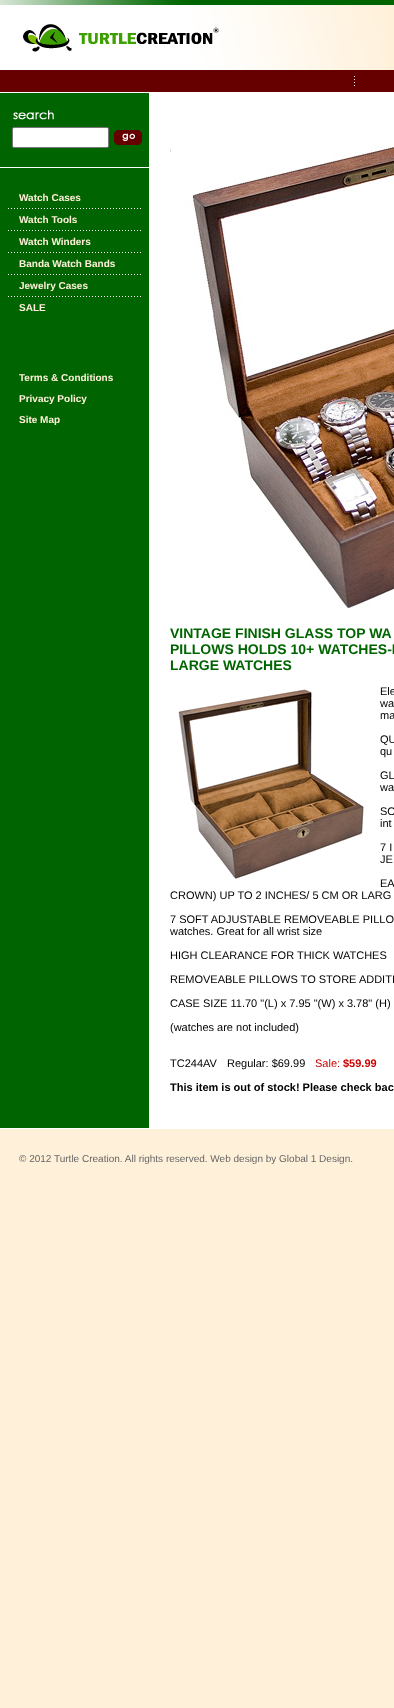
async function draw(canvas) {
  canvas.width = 394;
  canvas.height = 1708;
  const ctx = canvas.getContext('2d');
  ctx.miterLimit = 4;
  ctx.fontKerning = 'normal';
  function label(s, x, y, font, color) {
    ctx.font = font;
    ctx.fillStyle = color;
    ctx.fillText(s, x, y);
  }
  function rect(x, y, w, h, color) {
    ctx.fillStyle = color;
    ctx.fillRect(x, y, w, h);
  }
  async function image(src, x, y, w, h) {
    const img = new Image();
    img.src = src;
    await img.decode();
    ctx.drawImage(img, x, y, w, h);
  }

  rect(0, 0, 394, 1708, '#fff0d9');
  rect(386, 0, 8, 5, '#006500');
  await image('assets/img1.png', 0, 0, 386, 70);
  await image('assets/img2.png', 23, 24, 196, 28);
  rect(0, 70, 394, 22, '#600');
  await image('assets/img3.png', 354, 76, 1, 10);
  rect(0, 92, 394, 1, '#fff');
  rect(0, 93, 149, 1035, '#006500');
  await image('assets/img4.png', 13, 110, 41, 10);
  ctx.fillStyle = '#fff';
  ctx.beginPath();
  ctx.roundRect(12.5, 127.5, 96, 20, 1.5);
  ctx.fill();
  ctx.strokeStyle = '#767676';
  ctx.stroke();
  await image('assets/img5.png', 114, 130, 28, 15);
  rect(0, 167, 149, 1, '#fff');
  label('Watch Cases', 19, 201, 'bold 10px Liberation Sans', '#fff0d9');
  await image('assets/img6.png', 8, 208, 133, 1);
  label('Watch Tools', 19, 223, 'bold 10px Liberation Sans', '#fff0d9');
  await image('assets/img6.png', 8, 230, 133, 1);
  label('Watch Winders', 19, 245, 'bold 10px Liberation Sans', '#fff0d9');
  await image('assets/img6.png', 8, 252, 133, 1);
  label('Banda Watch Bands', 19, 267, 'bold 10px Liberation Sans', '#fff0d9');
  await image('assets/img6.png', 8, 274, 133, 1);
  label('Jewelry Cases', 19, 289, 'bold 10px Liberation Sans', '#fff0d9');
  await image('assets/img6.png', 8, 296, 133, 1);
  label('SALE', 19, 311, 'bold 10px Liberation Sans', '#fff0d9');
  label('Terms & Conditions', 19, 381, 'bold 10px Liberation Sans', '#fff0d9');
  label('Privacy Policy', 19, 402, 'bold 10px Liberation Sans', '#fff0d9');
  label('Site Map', 19, 423, 'bold 10px Liberation Sans', '#fff0d9');
  rect(149, 93, 245, 1035, '#fff');
  await image('assets/img7.png', 170, 145, 224, 464);
  label('VINTAGE FINISH GLASS TOP WA', 170, 638, 'bold 14px Liberation Sans', '#006500');
  label('PILLOWS HOLDS 10+ WATCHES-I', 170, 654, 'bold 14px Liberation Sans', '#006500');
  label('LARGE WATCHES', 170, 670, 'bold 14px Liberation Sans', '#006500');
  await image('assets/img8.png', 178, 689, 186, 190);
  label('Ele', 380, 695, '11px Liberation Sans', '#000');
  label('wa', 380, 707, '11px Liberation Sans', '#000');
  label('ma', 380, 719, '11px Liberation Sans', '#000');
  label('QU', 380, 743, '11px Liberation Sans', '#000');
  label('qu', 380, 755, '11px Liberation Sans', '#000');
  label('GL', 380, 779, '11px Liberation Sans', '#000');
  label('wa', 380, 791, '11px Liberation Sans', '#000');
  label('SO', 380, 815, '11px Liberation Sans', '#000');
  label('int', 380, 827, '11px Liberation Sans', '#000');
  label('7 I', 380, 851, '11px Liberation Sans', '#000');
  label('JE', 380, 863, '11px Liberation Sans', '#000');
  label('EA', 380, 887, '11px Liberation Sans', '#000');
  label('CROWN) UP TO 2 INCHES/ 5 CM OR LARG', 170, 899, '11px Liberation Sans', '#000');
  label('7 SOFT ADJUSTABLE REMOVEABLE PILLO', 170, 923, '11px Liberation Sans', '#000');
  label('watches. Great for all wrist size', 170, 935, '11px Liberation Sans', '#000');
  label('HIGH CLEARANCE FOR THICK WATCHES', 170, 959, '11px Liberation Sans', '#000');
  label('REMOVEABLE PILLOWS TO STORE ADDITI', 170, 983, '11px Liberation Sans', '#000');
  label('CASE SIZE 11.70 "(L) x 7.95 "(W) x 3.78" (H)', 170, 1007, '11px Liberation Sans', '#000');
  label('(watches are not included)', 170, 1031, '11px Liberation Sans', '#000');
  label('TC244AV', 170, 1067, '11px Liberation Sans', '#000');
  label('Regular: $69.99', 227, 1067, '11px Liberation Sans', '#000');
  label('Sale:', 315, 1067, '11px Liberation Sans', '#c00');
  label('$59.99', 343, 1067, 'bold 11px Liberation Sans', '#c00');
  label('This item is out of stock! Please check bac', 170, 1091, 'bold 11px Liberation Sans', '#000');
  rect(0, 1128, 394, 1, '#fff');
  label('© 2012 Turtle Creation. All rights reserved. Web design by Global 1 Design.', 19, 1162, '10px Liberation Sans', '#666');
}

draw(document.querySelector('canvas'));
